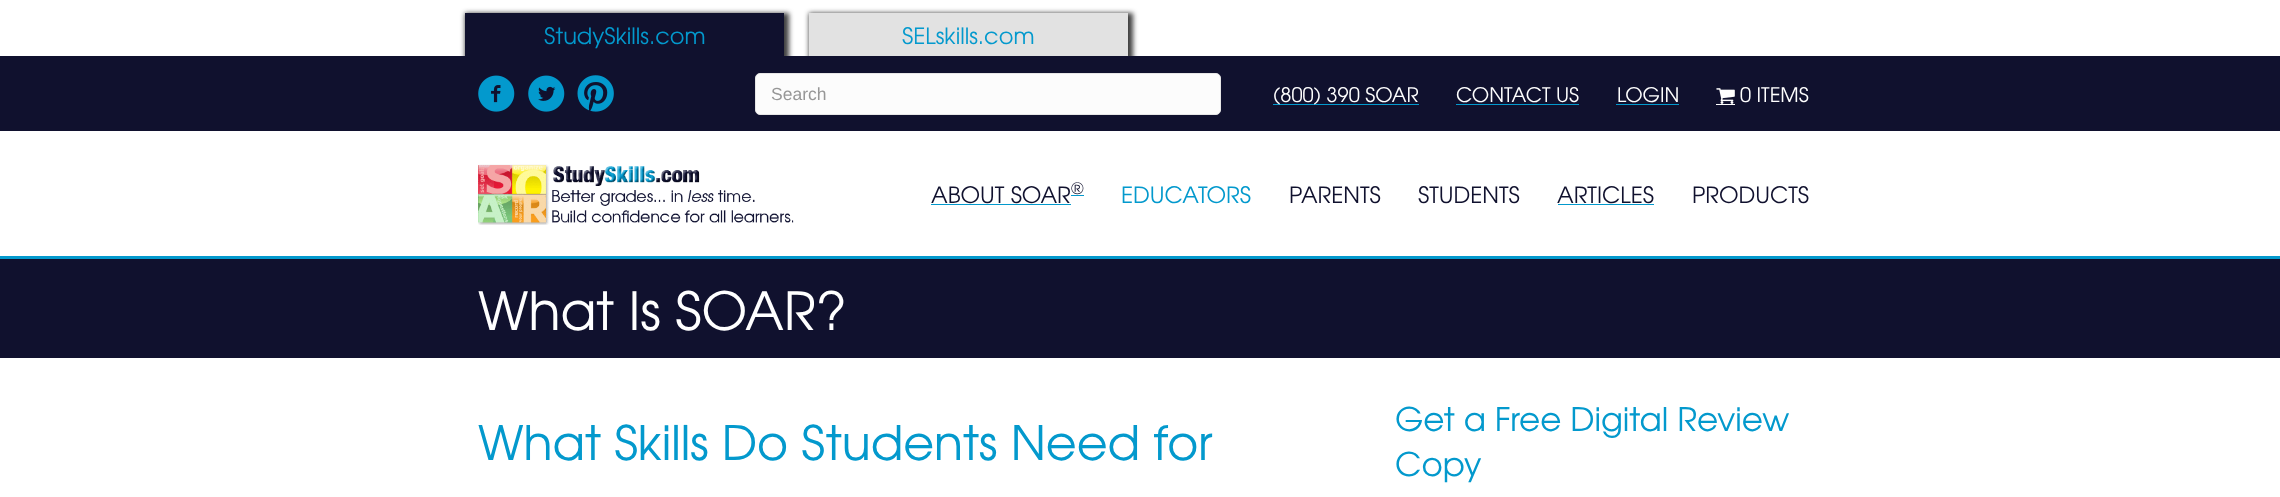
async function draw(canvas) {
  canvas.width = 2280;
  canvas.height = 497;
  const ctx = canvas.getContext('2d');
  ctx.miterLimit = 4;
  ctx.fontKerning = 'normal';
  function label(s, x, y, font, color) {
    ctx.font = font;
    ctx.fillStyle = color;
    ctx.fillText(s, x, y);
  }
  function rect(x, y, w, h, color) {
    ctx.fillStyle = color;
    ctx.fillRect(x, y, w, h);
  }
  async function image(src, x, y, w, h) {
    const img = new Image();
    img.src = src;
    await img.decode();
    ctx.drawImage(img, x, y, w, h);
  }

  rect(0, 0, 2280, 497, '#fff');
  ctx.fillStyle = '#161616d1';
  ctx.filter = 'blur(2.5px)';
  ctx.beginPath();
  ctx.rect(465, 13, 324, 48);
  ctx.fill();
  ctx.filter = 'none';
  rect(465, 13, 319, 43, '#10112e');
  label('StudySkills.com', 544, 44, '22.5px TeX Gyre Adventor', '#0399cd');
  ctx.fillStyle = '#161616d1';
  ctx.filter = 'blur(2.5px)';
  ctx.beginPath();
  ctx.rect(809, 13, 324, 48);
  ctx.fill();
  ctx.filter = 'none';
  rect(809, 13, 319, 43, '#e2e2e2');
  label('SELskills.com', 902, 44, '22.5px TeX Gyre Adventor', '#0399cd');
  rect(0, 56, 2280, 75, '#10112e');
  await image('assets/img1.png', 478, 75, 37, 37);
  await image('assets/img2.png', 528, 75, 37, 37);
  await image('assets/img3.png', 577, 75, 37, 37);
  ctx.fillStyle = '#fcfcfc';
  ctx.beginPath();
  ctx.roundRect(755.5, 73.5, 465, 41, 4.5);
  ctx.fill();
  ctx.strokeStyle = '#e6e6e6';
  ctx.stroke();
  label('Search', 771, 100, '17.5px Liberation Sans', '#979797');
  rect(1273, 104, 146, 1, '#0399cd');
  label('(800) 390 SOAR', 1273, 102, '20px TeX Gyre Adventor', '#fff');
  label('CONTACT US', 1456, 102, '20px TeX Gyre Adventor', '#fff');
  rect(1456, 104, 123, 1, '#0399cd');
  label('LOGIN', 1617, 102, '20px TeX Gyre Adventor', '#fff');
  rect(1616, 104, 63, 1, '#0399cd');
  await image('assets/img4.png', 1716, 88, 19, 16);
  label('0 ITEMS', 1740, 102, '20px TeX Gyre Adventor', '#fff');
  rect(1716, 104, 19, 1, '#fff');
  rect(0, 256, 2280, 3, '#0399cd');
  await image('assets/img5.png', 478, 164, 316, 61);
  label('ABOUT SOAR', 931, 203, '22.5px TeX Gyre Adventor', '#10112e');
  rect(931, 204, 140, 1, '#0399cd');
  rect(1071, 195, 13, 1, '#0399cd');
  label('®', 1071, 194, '17px TeX Gyre Adventor', '#10112e');
  label('EDUCATORS', 1121, 203, '22.5px TeX Gyre Adventor', '#0399cd');
  label('PARENTS', 1289, 203, '22.5px TeX Gyre Adventor', '#10112e');
  label('STUDENTS', 1418, 203, '22.5px TeX Gyre Adventor', '#10112e');
  label('ARTICLES', 1557, 203, '22.5px TeX Gyre Adventor', '#10112e');
  rect(1558, 204, 96, 1, '#0399cd');
  label('PRODUCTS', 1692, 203, '22.5px TeX Gyre Adventor', '#10112e');
  rect(0, 259, 2280, 99, '#10112e');
  label('What Is SOAR?', 478, 330, '52.5px TeX Gyre Adventor', '#fff');
  label('What Skills Do Students Need for', 478, 460, '47.5px TeX Gyre Adventor', '#0399cd');
  label('Get a Free Digital Review', 1395, 431, '32.5px TeX Gyre Adventor', '#0399cd');
  label('Copy', 1395, 476, '32.5px TeX Gyre Adventor', '#0399cd');
}

draw(document.querySelector('canvas'));
